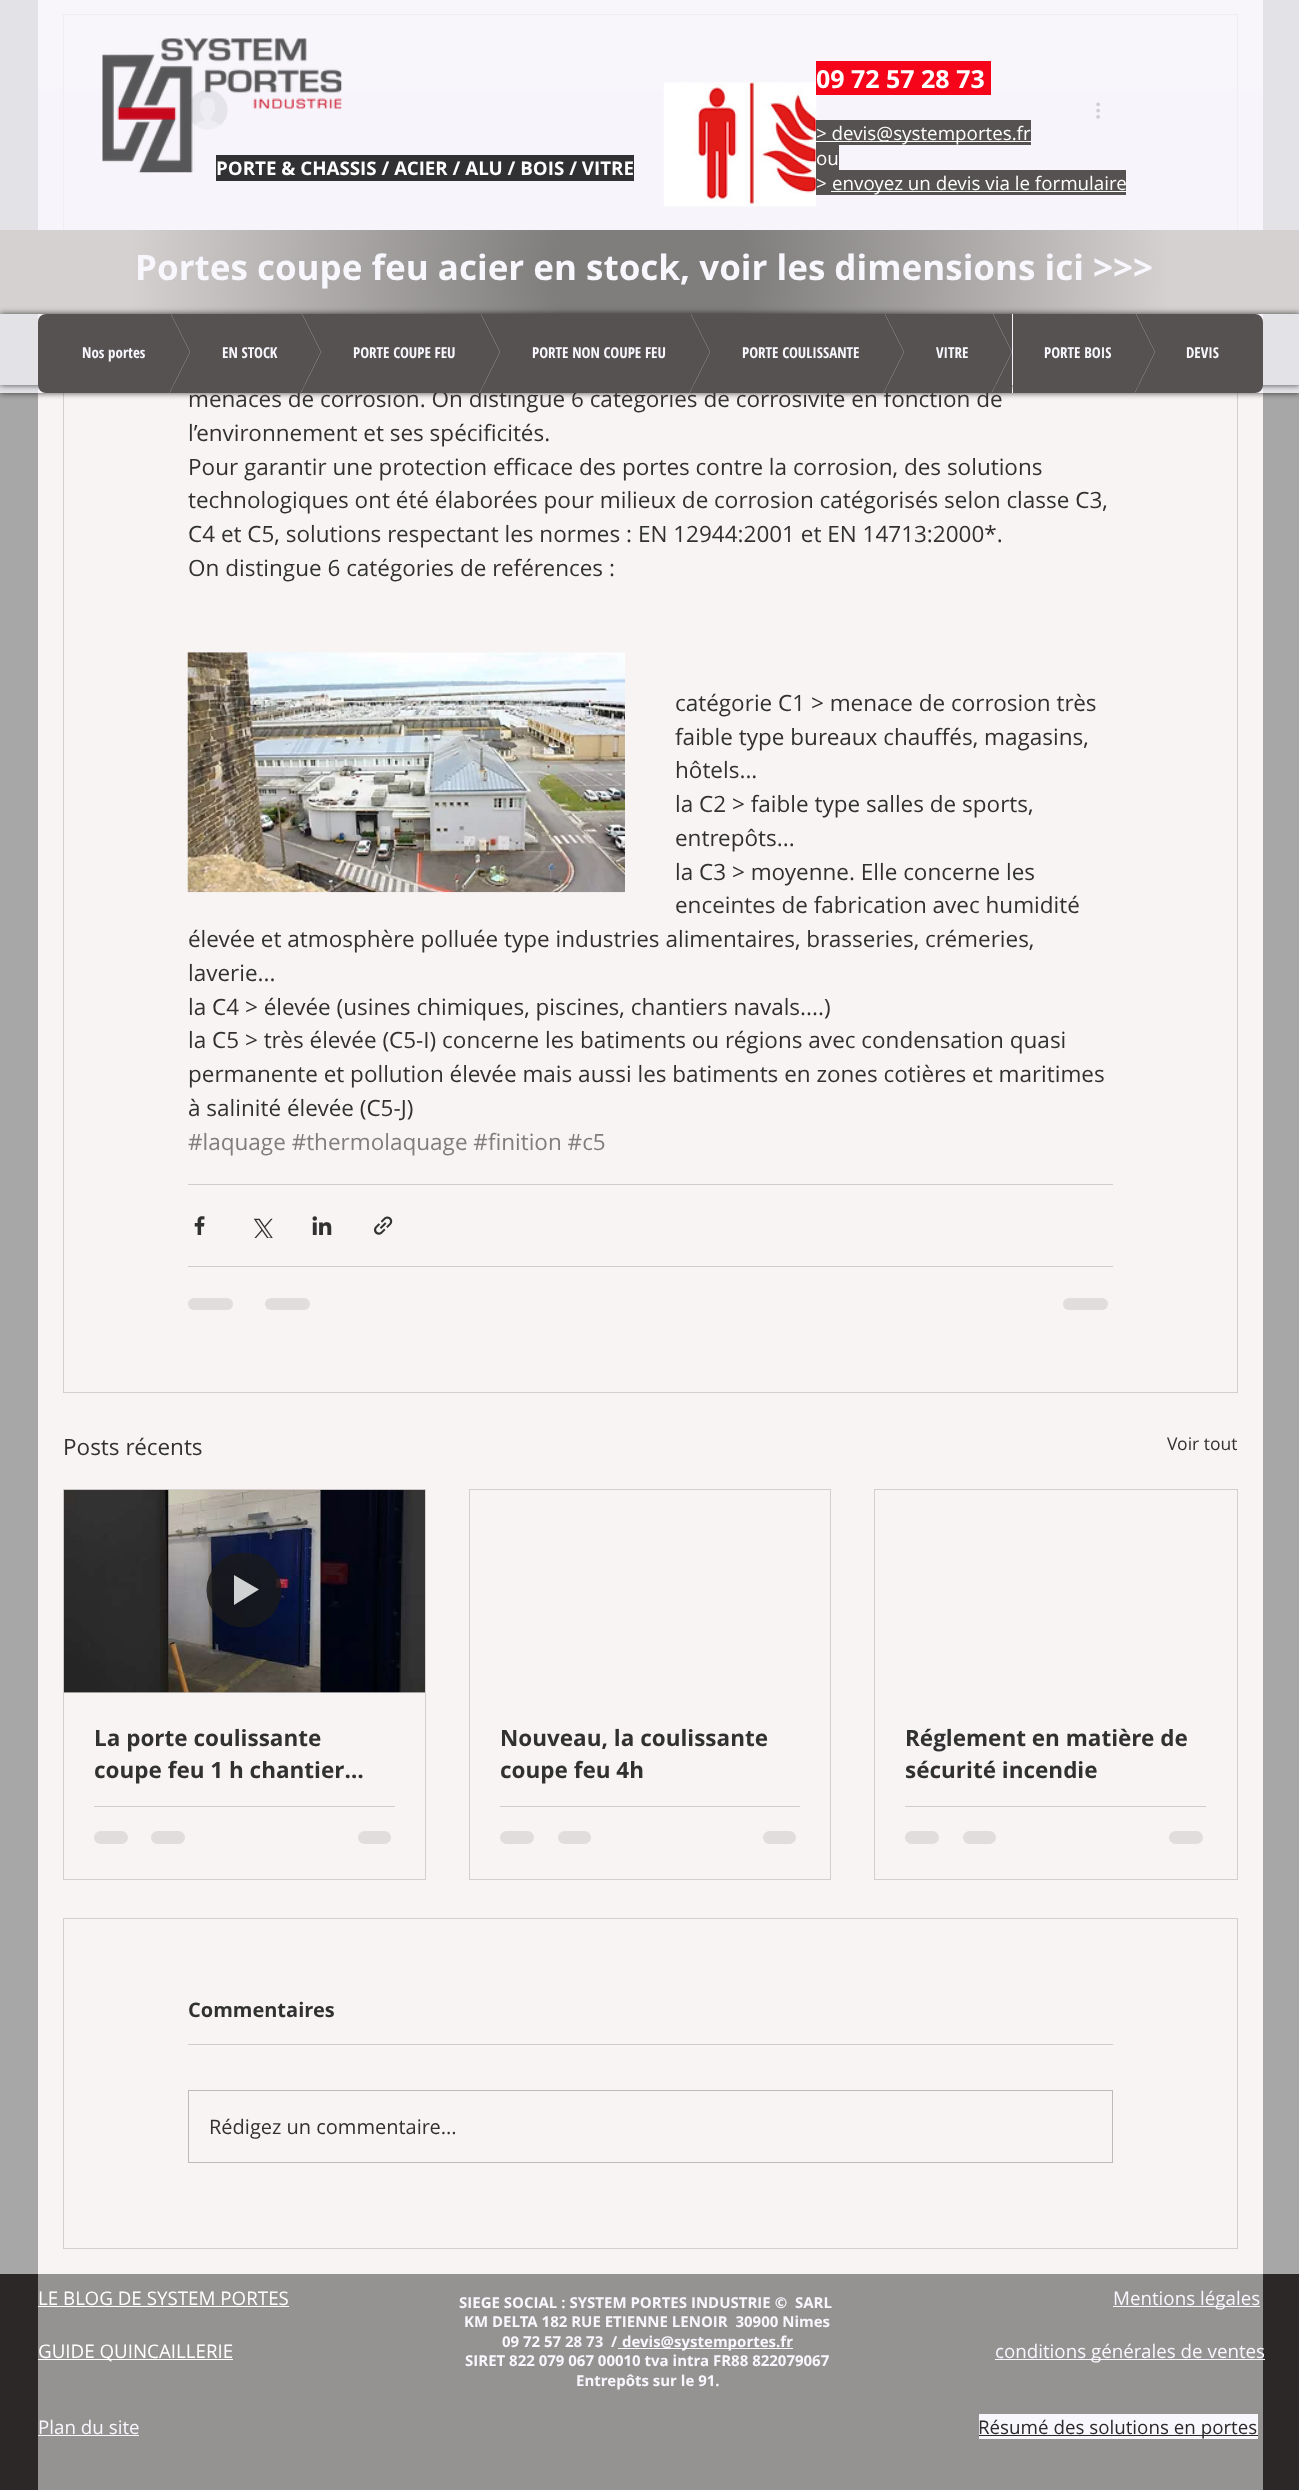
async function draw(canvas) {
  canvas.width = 1299;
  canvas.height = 2490;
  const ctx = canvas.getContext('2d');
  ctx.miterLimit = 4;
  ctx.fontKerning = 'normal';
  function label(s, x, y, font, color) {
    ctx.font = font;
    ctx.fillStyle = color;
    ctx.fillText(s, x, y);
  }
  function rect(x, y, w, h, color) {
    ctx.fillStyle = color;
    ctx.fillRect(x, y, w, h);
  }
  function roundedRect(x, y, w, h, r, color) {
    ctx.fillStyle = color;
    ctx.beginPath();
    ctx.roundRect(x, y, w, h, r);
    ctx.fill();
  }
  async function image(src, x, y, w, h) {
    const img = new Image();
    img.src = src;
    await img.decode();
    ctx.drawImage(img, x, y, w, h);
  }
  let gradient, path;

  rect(0, 0, 1299, 2490, '#a7a7a7');
  rect(38, 0, 1225, 2274, '#f9f4f4');
  ctx.strokeStyle = '#d4cfcf';
  ctx.strokeRect(63.5, 14.5, 1174, 1378);
  await image('assets/img3.png', 188, 90, 40, 40);
  await image('assets/img4.png', 1096, 102, 4, 17);
  ctx.save();
  path = new Path2D('M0 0H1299V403H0ZM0 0H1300V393H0Z');
  ctx.clip(path, 'evenodd');
  ctx.fillStyle = '#000000b3';
  ctx.filter = 'blur(3px)';
  ctx.beginPath();
  ctx.rect(0, 0, 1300, 393);
  ctx.fill();
  ctx.filter = 'none';
  ctx.restore();
  label('menaces de corrosion. On distingue 6 catégories de corrosivité en fonction de', 188, 407, '22.5px Open Sans', '#323131');
  rect(0, 0, 1299, 393, '#f7f7fdbd');
  rect(38, 90, 1225, 303, '#f7f7fd33');
  rect(216, 155, 418, 26, '#313133');
  label('PORTE & CHASSIS / ACIER / ALU / BOIS / VITRE', 216, 175, 'bold 18.75px Open Sans', '#fff');
  await image('assets/img1.png', 102, 38, 240, 135);
  await image('assets/img2.png', 663, 82, 154, 125);
  rect(816, 61, 175, 34, '#f60419');
  label('09 72 57 28 73', 816, 88, 'bold 25px Open Sans', '#fff');
  rect(816, 120, 215, 25, '#565252');
  rect(816, 141, 215, 1, '#fff');
  label('> devis@systemportes.fr', 816, 140, '18.75px Open Sans', '#fff');
  rect(816, 145, 23, 25, '#565252');
  label('ou', 816, 165, '18.75px Open Sans', '#fff');
  rect(816, 170, 310, 25, '#565252');
  label('>', 816, 190, '18.75px Open Sans', '#fff');
  rect(831, 191, 295, 1, '#fff');
  label('envoyez un devis via le formulaire', 832, 190, '18.75px Open Sans', '#fff');
  gradient = ctx.createRadialGradient(650, 272, 0, 650, 272, 651);
  gradient.addColorStop(0.15, '#807d7d');
  gradient.addColorStop(0.8, '#d5d1d1');
  ctx.fillStyle = gradient;
  ctx.fillRect(0, 230, 1299, 84);
  label('Portes coupe feu acier en stock, voir les dimensions ici >>>', 135, 280, 'bold 35px Open Sans', '#f7f7fd');
  ctx.save();
  path = new Path2D('M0 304H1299V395H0ZM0 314H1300V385H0Z');
  ctx.clip(path, 'evenodd');
  ctx.fillStyle = '#000000b3';
  ctx.filter = 'blur(3px)';
  ctx.beginPath();
  ctx.rect(0, 314, 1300, 71);
  ctx.fill();
  ctx.filter = 'none';
  ctx.restore();
  ctx.fillStyle = '#565252';
  ctx.beginPath();
  ctx.roundRect(38, 314, 65, 79, [8, 0, 0, 8]);
  ctx.fill();
  ctx.save();
  ctx.beginPath();
  ctx.rect(103, 314, 87, 79);
  ctx.clip();
  path = new Path2D('M190 352H102V178Z');
  ctx.fill(path);
  path = new Path2D('M102 352H190L102 528Z');
  ctx.fill(path);
  ctx.restore();
  label('Nos portes', 82, 358, 'bold 15px Open Sans Condensed', '#f7f7fd');
  ctx.save();
  ctx.beginPath();
  ctx.rect(103, 314, 87, 79);
  ctx.clip();
  ctx.fillStyle = '#565252';
  path = new Path2D('M102 178H190V352Z');
  ctx.fill(path);
  path = new Path2D('M190 528H102L190 352Z');
  ctx.fill(path);
  ctx.restore();
  rect(190, 314, 44, 79, '#565252');
  ctx.save();
  ctx.beginPath();
  ctx.rect(234, 314, 87, 79);
  ctx.clip();
  path = new Path2D('M321 352H234V178Z');
  ctx.fill(path);
  path = new Path2D('M234 352H321L234 528Z');
  ctx.fill(path);
  ctx.restore();
  label('EN STOCK', 222, 358, 'bold 15px Open Sans Condensed', '#f7f7fd');
  ctx.save();
  ctx.beginPath();
  ctx.rect(234, 314, 87, 79);
  ctx.clip();
  ctx.fillStyle = '#565252';
  path = new Path2D('M234 178H321V352Z');
  ctx.fill(path);
  path = new Path2D('M321 528H234L321 352Z');
  ctx.fill(path);
  ctx.restore();
  rect(321, 314, 92, 79, '#565252');
  ctx.save();
  ctx.beginPath();
  ctx.rect(413, 314, 87, 79);
  ctx.clip();
  path = new Path2D('M500 352H412V178Z');
  ctx.fill(path);
  path = new Path2D('M412 352H500L412 528Z');
  ctx.fill(path);
  ctx.restore();
  label('PORTE COUPE FEU', 353, 358, 'bold 15px Open Sans Condensed', '#f7f7fd');
  ctx.save();
  ctx.beginPath();
  ctx.rect(413, 314, 87, 79);
  ctx.clip();
  ctx.fillStyle = '#565252';
  path = new Path2D('M412 178H500V352Z');
  ctx.fill(path);
  path = new Path2D('M500 528H412L500 352Z');
  ctx.fill(path);
  ctx.restore();
  rect(500, 314, 123, 79, '#565252');
  ctx.save();
  ctx.beginPath();
  ctx.rect(623, 314, 87, 79);
  ctx.clip();
  path = new Path2D('M710 352H622V178Z');
  ctx.fill(path);
  path = new Path2D('M622 352H710L622 528Z');
  ctx.fill(path);
  ctx.restore();
  label('PORTE NON COUPE FEU', 532, 358, 'bold 15px Open Sans Condensed', '#f7f7fd');
  ctx.save();
  ctx.beginPath();
  ctx.rect(623, 314, 87, 79);
  ctx.clip();
  ctx.fillStyle = '#565252';
  path = new Path2D('M622 178H710V352Z');
  ctx.fill(path);
  path = new Path2D('M710 528H622L710 352Z');
  ctx.fill(path);
  ctx.restore();
  rect(710, 314, 106, 79, '#565252');
  ctx.save();
  ctx.beginPath();
  ctx.rect(816, 314, 88, 79);
  ctx.clip();
  path = new Path2D('M904 352H816V178Z');
  ctx.fill(path);
  path = new Path2D('M816 352H904L816 528Z');
  ctx.fill(path);
  ctx.restore();
  label('PORTE COULISSANTE', 742, 358, 'bold 15px Open Sans Condensed', '#f7f7fd');
  ctx.save();
  ctx.beginPath();
  ctx.rect(816, 314, 88, 79);
  ctx.clip();
  ctx.fillStyle = '#565252';
  path = new Path2D('M816 178H904V352Z');
  ctx.fill(path);
  path = new Path2D('M904 528H816L904 352Z');
  ctx.fill(path);
  ctx.restore();
  rect(904, 314, 21, 79, '#565252');
  ctx.save();
  ctx.beginPath();
  ctx.rect(925, 314, 88, 79);
  ctx.clip();
  path = new Path2D('M1012 352H925V178Z');
  ctx.fill(path);
  path = new Path2D('M925 352H1012L925 528Z');
  ctx.fill(path);
  ctx.restore();
  label('VITRE', 936, 358, 'bold 15px Open Sans Condensed', '#f7f7fd');
  ctx.save();
  ctx.beginPath();
  ctx.rect(925, 314, 88, 79);
  ctx.clip();
  ctx.fillStyle = '#565252';
  path = new Path2D('M925 178H1012V352Z');
  ctx.fill(path);
  path = new Path2D('M1012 528H925L1012 352Z');
  ctx.fill(path);
  ctx.restore();
  rect(1013, 314, 55, 79, '#565252');
  ctx.save();
  ctx.beginPath();
  ctx.rect(1068, 314, 87, 79);
  ctx.clip();
  path = new Path2D('M1155 352H1068V178Z');
  ctx.fill(path);
  path = new Path2D('M1068 352H1155L1068 528Z');
  ctx.fill(path);
  ctx.restore();
  label('PORTE BOIS', 1044, 358, 'bold 15px Open Sans Condensed', '#f7f7fd');
  ctx.save();
  ctx.beginPath();
  ctx.rect(1068, 314, 87, 79);
  ctx.clip();
  ctx.fillStyle = '#565252';
  path = new Path2D('M1068 178H1155V352Z');
  ctx.fill(path);
  path = new Path2D('M1155 528H1068L1155 352Z');
  ctx.fill(path);
  ctx.restore();
  rect(1155, 314, 20, 79, '#565252');
  ctx.beginPath();
  ctx.roundRect(1175, 314, 88, 79, [0, 8, 8, 0]);
  ctx.fill();
  label('DEVIS', 1186, 358, 'bold 15px Open Sans Condensed', '#f7f7fd');
  rect(64, 1692, 361, 1, '#c7c3c3');
  label('l’environnement et ses spécificités.', 188, 441, '22.5px Open Sans', '#323131');
  label('Pour garantir une protection efficace des portes contre la corrosion, des solutions', 188, 475, '22.5px Open Sans', '#323131');
  label('technologiques ont été élaborées pour milieux de corrosion catégorisés selon classe C3,', 188, 508, '22.5px Open Sans', '#323131');
  label('C4 et C5, solutions respectant les normes : EN 12944:2001 et EN 14713:2000*.', 188, 542, '22.5px Open Sans', '#323131');
  label('On distingue 6 catégories de reférences :', 188, 576, '22.5px Open Sans', '#323131');
  await image('assets/img5.png', 187, 652, 438, 241);
  label('catégorie C1 > menace de corrosion très', 675, 711, '22.5px Open Sans', '#323131');
  label('faible type bureaux chauffés, magasins,', 675, 745, '22.5px Open Sans', '#323131');
  label('hôtels...', 675, 778, '22.5px Open Sans', '#323131');
  label('la C2 > faible type salles de sports,', 675, 812, '22.5px Open Sans', '#323131');
  label('entrepôts...', 675, 846, '22.5px Open Sans', '#323131');
  label('la C3 > moyenne. Elle concerne les', 675, 880, '22.5px Open Sans', '#323131');
  label('enceintes de fabrication avec humidité', 675, 913, '22.5px Open Sans', '#323131');
  label('élevée et atmosphère polluée type industries alimentaires, brasseries, crémeries,', 188, 947, '22.5px Open Sans', '#323131');
  label('laverie...', 188, 981, '22.5px Open Sans', '#323131');
  label('la C4 > élevée (usines chimiques, piscines, chantiers navals....)', 188, 1015, '22.5px Open Sans', '#323131');
  label('la C5 > très élevée (C5-I) concerne les batiments ou régions avec condensation quasi', 188, 1048, '22.5px Open Sans', '#323131');
  label('permanente et pollution élevée mais aussi les batiments en zones cotières et maritimes', 188, 1082, '22.5px Open Sans', '#323131');
  label('à salinité élevée (C5-J)', 188, 1116, '22.5px Open Sans', '#323131');
  label('#laquage #thermolaquage #finition #c5', 188, 1150, '22.5px Open Sans', '#807d7d');
  rect(188, 1184, 925, 1, '#d1cdcd');
  await image('assets/img6.png', 194, 1216, 11, 19);
  await image('assets/img7.png', 253, 1218, 20, 20);
  await image('assets/img8.png', 312, 1216, 20, 19);
  await image('assets/img9.png', 374, 1216, 19, 19);
  rect(188, 1266, 925, 1, '#d1cdcd');
  roundedRect(188, 1298, 45, 12, 6, '#e1dddd');
  roundedRect(265, 1298, 45, 12, 6, '#e1dddd');
  roundedRect(1063, 1298, 45, 12, 6, '#e1dddd');
  label('Posts récents', 63, 1455, '22.5px Open Sans', '#323131');
  label('Voir tout', 1167, 1450, '17.5px Open Sans', '#323131');
  ctx.strokeRect(63.5, 1489.5, 362, 390);
  await image('assets/img10.png', 63, 1489, 362, 204);
  ctx.save();
  ctx.beginPath();
  ctx.rect(206, 1553, 75, 75);
  ctx.clip();
  ctx.fillStyle = '#1a1a1acc';
  ctx.beginPath();
  ctx.arc(244, 1590, 37.5, 0, 2 * Math.PI);
  ctx.fill();
  ctx.restore();
  ctx.fillStyle = '#d0d1d2';
  path = new Path2D('M234 1575V1605L259 1589.5Z');
  ctx.fill(path);
  label('La porte coulissante', 94, 1746, 'bold 22.5px Open Sans', '#323131');
  label('coupe feu 1 h chantier…', 94, 1778, 'bold 22.5px Open Sans', '#323131');
  rect(94, 1806, 301, 1, '#d1cdcd');
  roundedRect(94, 1831, 34, 13, 6.5, '#e1dddd');
  roundedRect(151, 1831, 34, 13, 6.5, '#e1dddd');
  roundedRect(358, 1831, 33, 13, 6.5, '#e1dddd');
  ctx.strokeRect(469.5, 1489.5, 361, 390);
  label('Nouveau, la coulissante', 500, 1746, 'bold 22.5px Open Sans', '#323131');
  label('coupe feu 4h', 500, 1778, 'bold 22.5px Open Sans', '#323131');
  rect(500, 1806, 300, 1, '#d1cdcd');
  roundedRect(500, 1831, 34, 13, 6.5, '#e1dddd');
  roundedRect(558, 1831, 33, 13, 6.5, '#e1dddd');
  roundedRect(763, 1831, 33, 13, 6.5, '#e1dddd');
  ctx.strokeRect(874.5, 1489.5, 363, 390);
  label('Réglement en matière de', 905, 1746, 'bold 22.5px Open Sans', '#323131');
  label('sécurité incendie', 905, 1778, 'bold 22.5px Open Sans', '#323131');
  rect(905, 1806, 301, 1, '#d1cdcd');
  roundedRect(905, 1831, 34, 13, 6.5, '#e1dddd');
  roundedRect(963, 1831, 33, 13, 6.5, '#e1dddd');
  roundedRect(1169, 1831, 34, 13, 6.5, '#e1dddd');
  ctx.strokeRect(63.5, 1918.5, 1174, 330);
  label('Commentaires', 188, 2017, 'bold 20px Open Sans', '#323131');
  rect(188, 2044, 925, 1, '#d1cdcd');
  ctx.strokeStyle = '#bdbaba';
  ctx.strokeRect(188.5, 2090.5, 924, 72);
  label('Rédigez un commentaire...', 209, 2134, '20px Open Sans', '#323131');
  rect(0, 2274, 1299, 216, '#2c2828');
  rect(38, 2274, 1225, 216, '#959292');
  label('LE BLOG DE SYSTEM PORTES', 38, 2305, '18.75px Open Sans', '#fff');
  rect(38, 2306, 251, 1, '#fff');
  label('SIEGE SOCIAL : SYSTEM PORTES INDUSTRIE ©  SARL', 459, 2308, 'bold 15px Open Sans', '#f7f7fd');
  label('KM DELTA 182 RUE ETIENNE LENOIR  30900 Nimes', 464, 2327, 'bold 15px Open Sans', '#f7f7fd');
  label('09 72 57 28 73  /', 502, 2347, 'bold 15px Open Sans', '#f7f7fd');
  rect(618, 2348, 175, 1, '#f7f7fd');
  label('devis@systemportes.fr', 622, 2347, 'bold 15px Open Sans', '#f7f7fd');
  label('SIRET 822 079 067 00010 tva intra FR88 822079067', 465, 2366, 'bold 15px Open Sans', '#f7f7fd');
  label('Entrepôts sur le 91.', 576, 2386, 'bold 15px Open Sans', '#f7f7fd');
  rect(1113, 2306, 147, 1, '#f7f7fd');
  label('Mentions légales', 1113, 2305, '18.75px Open Sans', '#f7f7fd');
  rect(38, 2359, 195, 1, '#fff');
  label('GUIDE QUINCAILLERIE', 38, 2358, '18.75px Open Sans', '#fff');
  rect(995, 2359, 270, 1, '#f7f7fd');
  label('conditions générales de ventes', 995, 2358, '18.75px Open Sans', '#f7f7fd');
  label('Plan du site', 38, 2434, '18.75px Open Sans', '#f7f7fd');
  rect(38, 2435, 101, 1, '#f7f7fd');
  rect(979, 2414, 279, 25, '#f7f7fd');
  rect(979, 2435, 279, 1, '#2c2828');
  label('Résumé des solutions en portes', 978, 2434, '18.75px Open Sans', '#2c2828');
}

draw(document.querySelector('canvas'));
